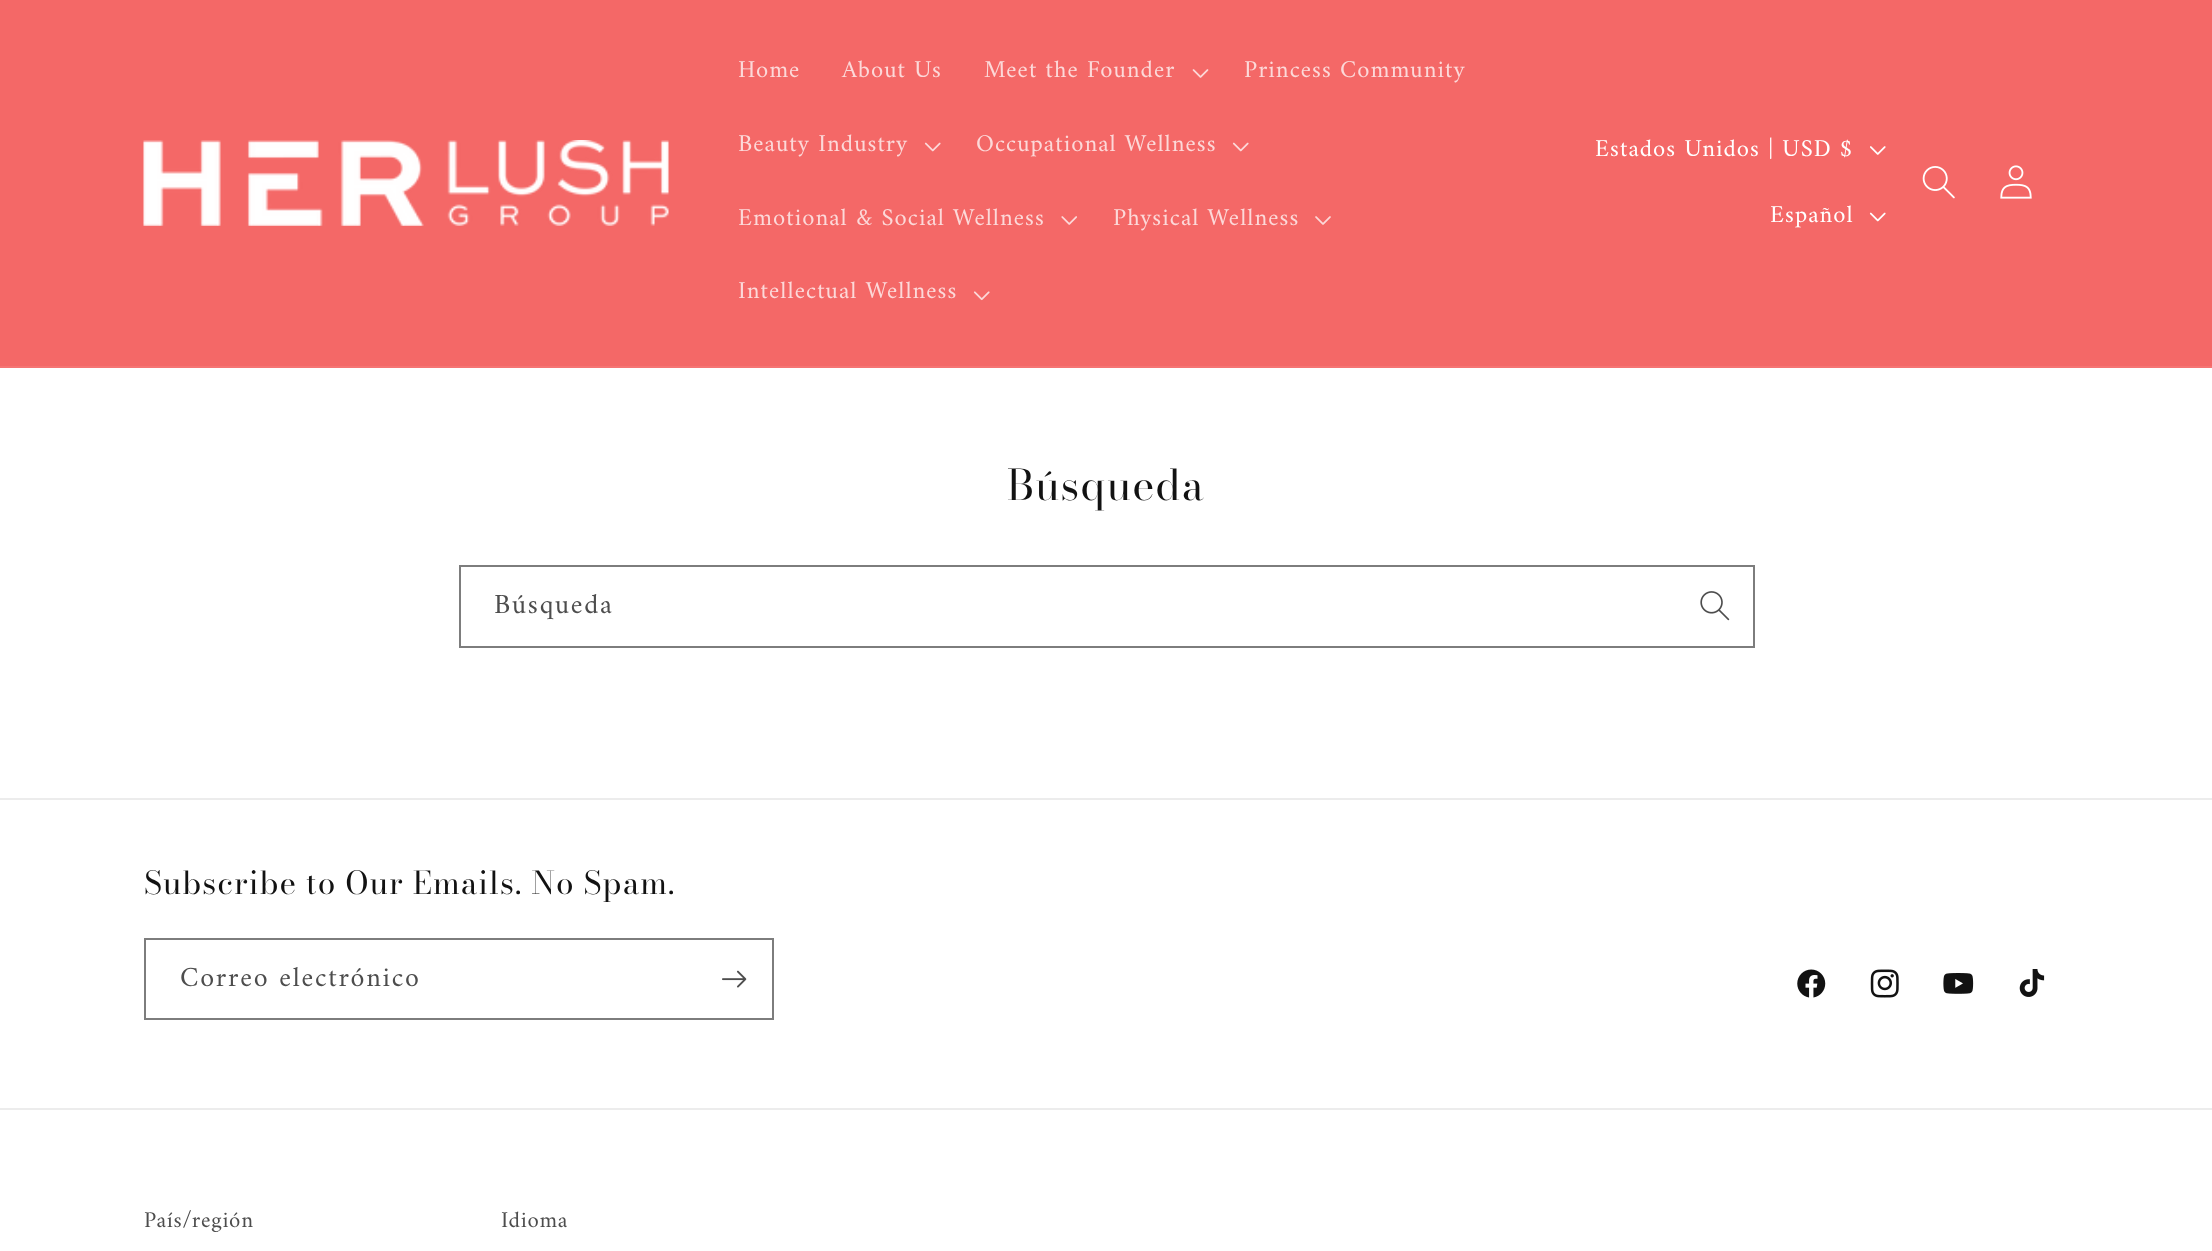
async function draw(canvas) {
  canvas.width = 2212;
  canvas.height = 1251;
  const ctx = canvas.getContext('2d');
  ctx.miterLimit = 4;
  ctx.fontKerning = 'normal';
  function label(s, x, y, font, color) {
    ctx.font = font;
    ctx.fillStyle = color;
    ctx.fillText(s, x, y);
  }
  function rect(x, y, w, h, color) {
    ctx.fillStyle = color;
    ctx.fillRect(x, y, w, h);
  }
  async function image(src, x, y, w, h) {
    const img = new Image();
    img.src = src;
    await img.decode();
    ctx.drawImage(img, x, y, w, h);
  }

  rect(0, 0, 2212, 1251, '#fff');
  rect(0, 0, 2212, 366, '#f46867');
  rect(0, 366, 2212, 2, '#f57473');
  await image('assets/img1.png', 143, 140, 526, 86);
  ctx.letterSpacing = '1.05px';
  label('Home', 738, 77, '24.5px Amiri', '#fcd9d9');
  label('About Us', 842, 77, '24.5px Amiri', '#fcd9d9');
  label('Meet the Founder', 984, 77, '24.5px Amiri', '#fcd9d9');
  await image('assets/img2.png', 1192, 69, 17, 9);
  label('Princess Community', 1244, 77, '24.5px Amiri', '#fcd9d9');
  label('Beauty Industry', 738, 151, '24.5px Amiri', '#fcd9d9');
  await image('assets/img3.png', 924, 142, 17, 10);
  label('Occupational Wellness', 976, 151, '24.5px Amiri', '#fcd9d9');
  await image('assets/img3.png', 1232, 142, 17, 10);
  label('Emotional & Social Wellness', 738, 225, '24.5px Amiri', '#fcd9d9');
  await image('assets/img4.png', 1061, 216, 16, 9);
  label('Physical Wellness', 1113, 225, '24.5px Amiri', '#fcd9d9');
  await image('assets/img5.png', 1315, 216, 16, 9);
  label('Intellectual Wellness', 738, 298, '24.5px Amiri', '#fcd9d9');
  await image('assets/img6.png', 973, 291, 17, 10);
  label('Estados Unidos | USD $', 1595, 156, '24.5px Amiri', '#fff');
  await image('assets/img7.png', 1870, 146, 16, 9);
  label('Español', 1770, 222, '24.5px Amiri', '#fff');
  await image('assets/img8.png', 1869, 212, 17, 10);
  await image('assets/img9.png', 1922, 166, 33, 33);
  await image('assets/img10.png', 2000, 165, 32, 34);
  label('Búsqueda', 1007, 500, '42px Bodoni Moda', '#121212');
  await image('assets/img11.png', 1700, 591, 30, 30);
  ctx.strokeStyle = '#7d7d7d';
  ctx.lineWidth = 2;
  ctx.strokeRect(460, 566, 1294, 81);
  ctx.letterSpacing = '1.75px';
  label('Búsqueda', 494, 613, '28px Amiri', '#4d4d4d');
  rect(0, 798, 2212, 2, '#ececec');
  ctx.letterSpacing = '1.05px';
  label('Subscribe to Our Emails. No Spam.', 144, 894, '31.5px "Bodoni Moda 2"', '#121212');
  ctx.strokeRect(145, 939, 628, 80);
  ctx.letterSpacing = '1.75px';
  label('Correo electrónico', 180, 986, '28px Amiri', '#4d4d4d');
  await image('assets/img12.png', 722, 970, 25, 18);
  await image('assets/img13.png', 1797, 969, 29, 29);
  await image('assets/img14.png', 1870, 969, 29, 29);
  await image('assets/img15.png', 1943, 973, 31, 21);
  await image('assets/img16.png', 2019, 969, 26, 28);
  rect(0, 1108, 2212, 2, '#ececec');
  ctx.letterSpacing = '0.75px';
  label('País/región', 144, 1227, '22.75px Amiri', '#4d4d4d');
  label('Idioma', 501, 1227, '22.75px Amiri', '#4d4d4d');
}

draw(document.querySelector('canvas'));
